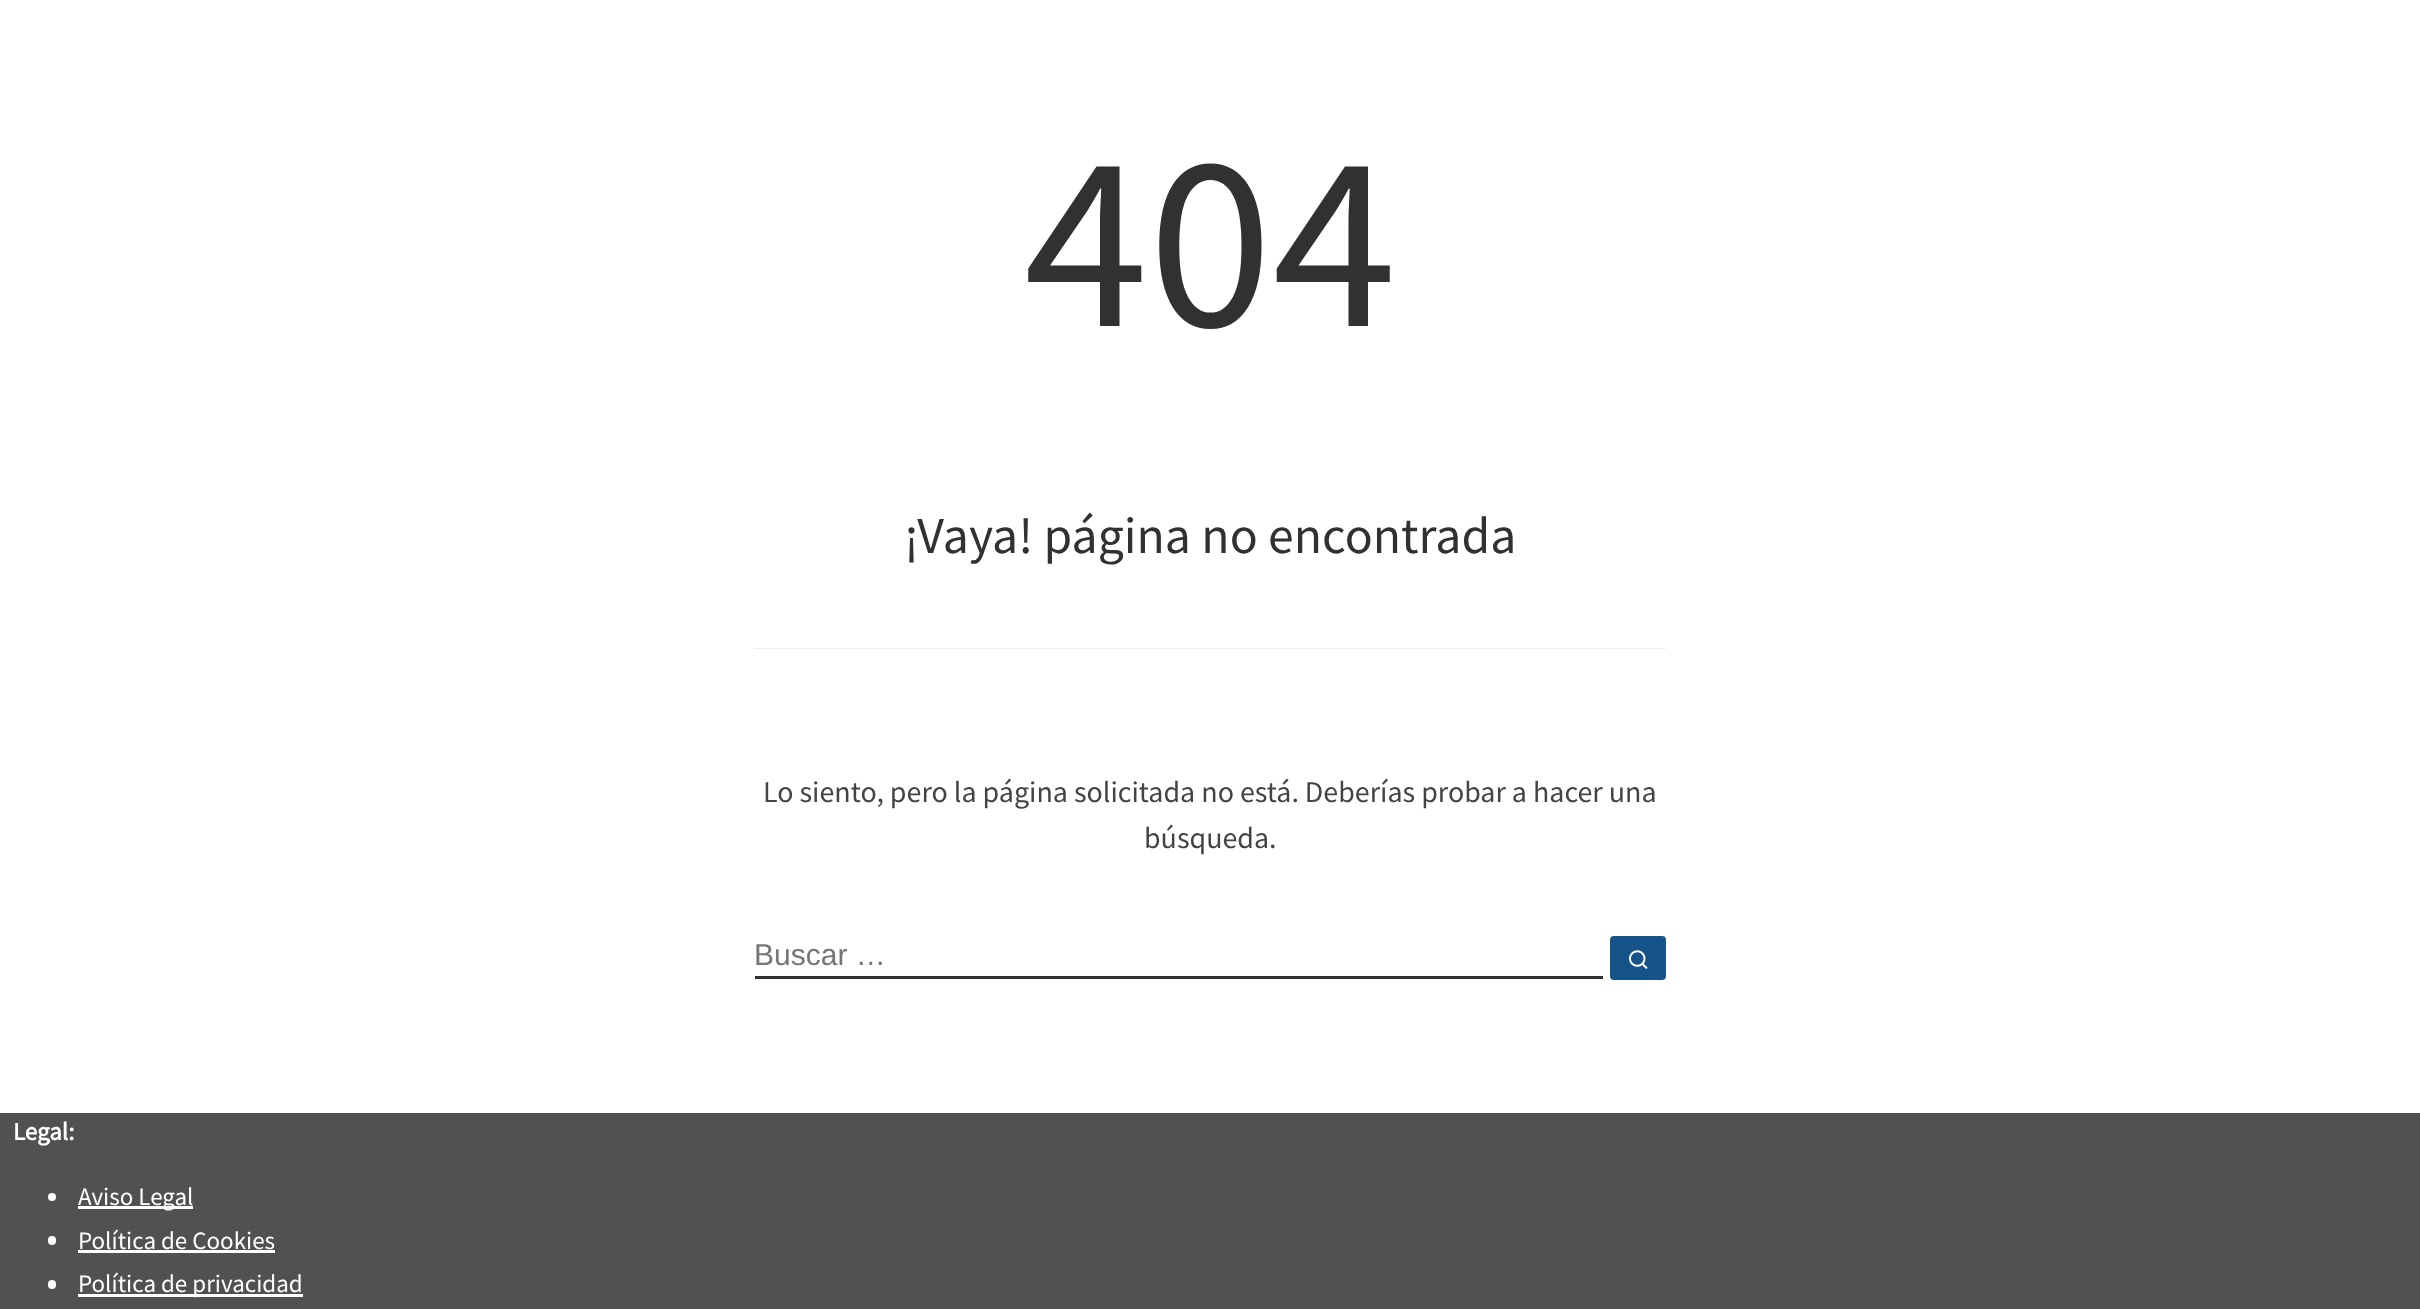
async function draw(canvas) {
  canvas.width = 2420;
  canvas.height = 1309;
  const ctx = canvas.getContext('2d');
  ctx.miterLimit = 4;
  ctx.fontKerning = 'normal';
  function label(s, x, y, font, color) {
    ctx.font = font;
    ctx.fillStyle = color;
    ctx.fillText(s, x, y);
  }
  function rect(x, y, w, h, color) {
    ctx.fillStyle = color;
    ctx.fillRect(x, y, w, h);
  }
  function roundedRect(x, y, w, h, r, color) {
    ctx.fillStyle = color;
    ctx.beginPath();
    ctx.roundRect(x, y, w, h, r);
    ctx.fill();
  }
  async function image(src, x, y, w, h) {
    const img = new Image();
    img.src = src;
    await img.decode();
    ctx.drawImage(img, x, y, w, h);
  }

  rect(0, 0, 2420, 1309, '#fff');
  label('404', 1024, 326, '250px Source Sans Pro', '#303133');
  label('¡Vaya! página no encontrada', 904, 553, '51.8px Source Sans Pro', '#303133');
  rect(754, 648, 912, 1, '#eceeef');
  label('Lo siento, pero la página solicitada no está. Deberías probar a hacer una', 763, 802, '30px Source Sans Pro', '#444');
  label('búsqueda.', 1144, 848, '30px Source Sans Pro', '#444');
  rect(755, 976, 848, 3, '#313131');
  label('Buscar …', 754, 965, '30px Liberation Sans', '#757575');
  ctx.fillStyle = '#165389';
  ctx.beginPath();
  ctx.roundRect(1611.5, 937.5, 53, 41, 2.5);
  ctx.fill();
  ctx.strokeStyle = '#165389';
  ctx.lineWidth = 3;
  ctx.stroke();
  await image('assets/img1.png', 1629, 950, 19, 19);
  rect(0, 1113, 2420, 196, '#515151');
  label('Legal:', 13, 1140, 'bold 25px Source Sans Pro', '#fff');
  ctx.beginPath();
  ctx.arc(52, 1197, 4, 0, 2 * Math.PI);
  ctx.fill();
  rect(78, 1206, 115, 3, '#fff');
  label('Aviso Legal', 78, 1205, '25px Source Sans Pro', '#fff');
  roundedRect(48, 1236, 8, 9, 4, '#fff');
  label('Política de Cookies', 78, 1249, '25px Source Sans Pro', '#fff');
  rect(78, 1250, 197, 3, '#fff');
  roundedRect(48, 1280, 8, 9, 4, '#fff');
  rect(78, 1294, 225, 3, '#fff');
  label('Política de privacidad', 78, 1292, '25px Source Sans Pro', '#fff');
}

draw(document.querySelector('canvas'));
